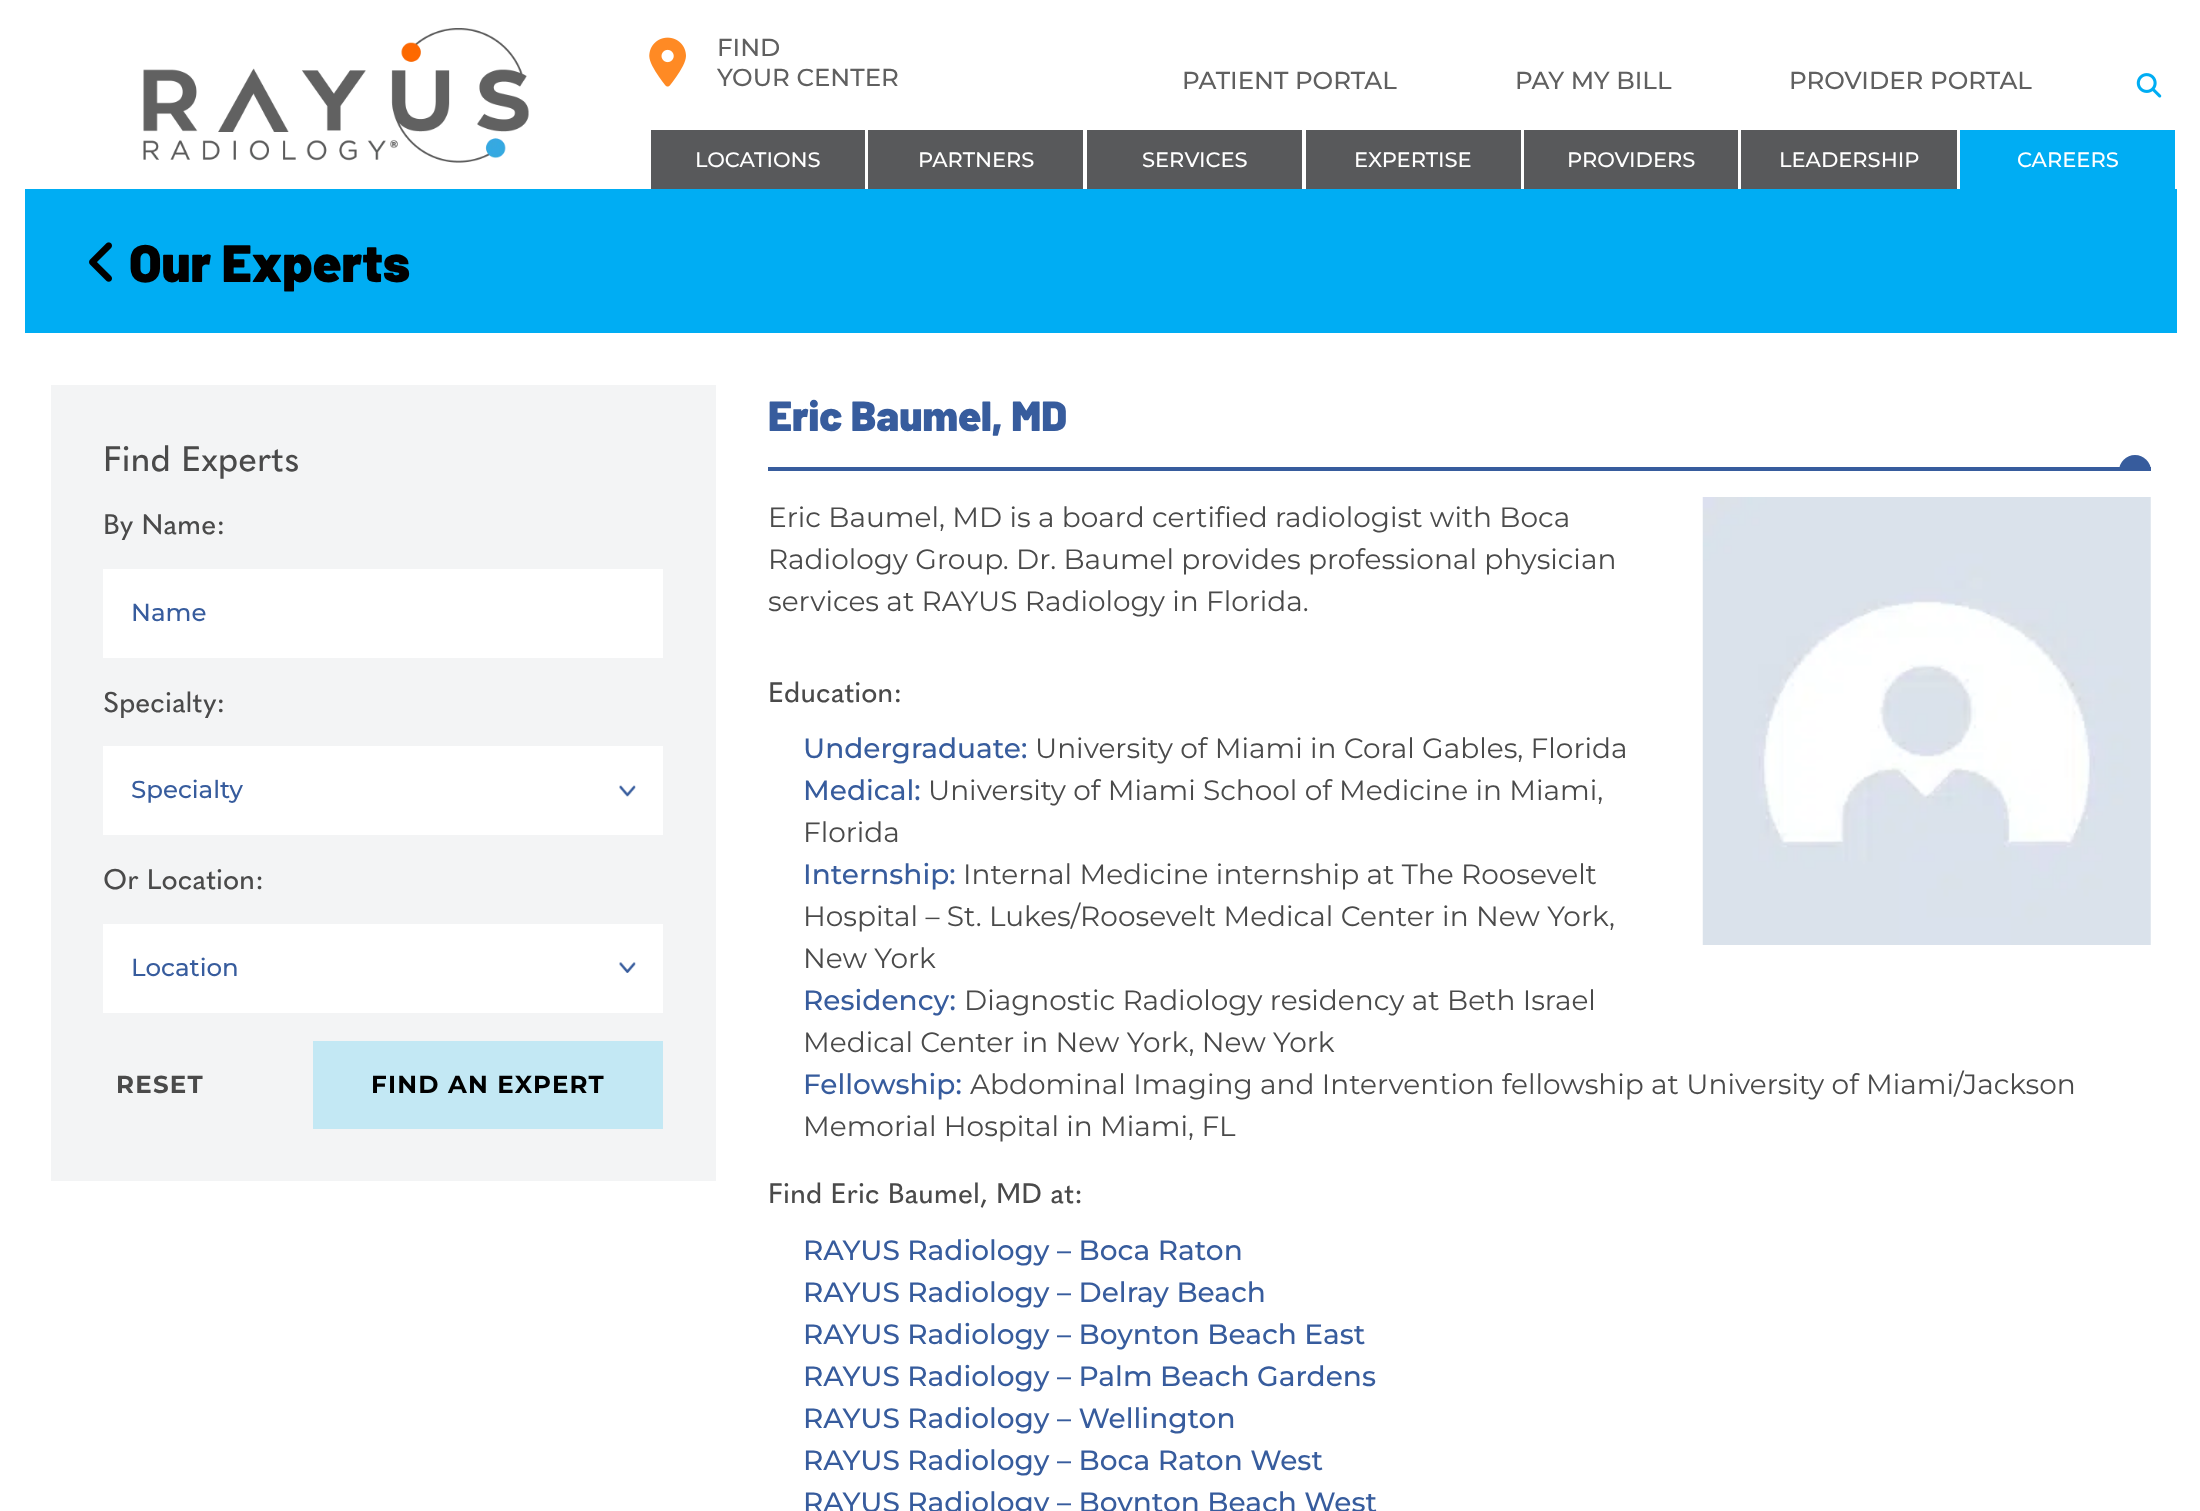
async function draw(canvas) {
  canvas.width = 2200;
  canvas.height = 1511;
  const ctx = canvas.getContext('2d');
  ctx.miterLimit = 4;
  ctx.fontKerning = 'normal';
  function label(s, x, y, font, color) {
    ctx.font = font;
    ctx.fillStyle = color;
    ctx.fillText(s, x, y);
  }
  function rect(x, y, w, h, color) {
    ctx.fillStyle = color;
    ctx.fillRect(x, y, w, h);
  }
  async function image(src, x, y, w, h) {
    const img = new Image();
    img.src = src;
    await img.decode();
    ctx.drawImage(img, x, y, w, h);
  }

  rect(0, 0, 2200, 1511, '#fff');
  await image('assets/img1.png', 143, 28, 386, 135);
  await image('assets/img2.png', 649, 37, 37, 50);
  label('FIND', 717, 56, '500 24.5px Montserrat', '#606060');
  label('YOUR CENTER', 717, 86, '500 24.5px Montserrat', '#606060');
  label('PATIENT PORTAL', 1182, 89, '500 24.5px Montserrat', '#606060');
  label('PAY MY BILL', 1515, 89, '500 24.5px Montserrat', '#606060');
  label('PROVIDER PORTAL', 1789, 89, '500 24.5px Montserrat', '#606060');
  await image('assets/img3.png', 2136, 73, 26, 25);
  rect(651, 130, 214, 59, '#58595b');
  label('LOCATIONS', 695, 167, '500 21px Montserrat', '#fff');
  rect(868, 130, 215, 59, '#58595b');
  label('PARTNERS', 918, 167, '500 21px Montserrat', '#fff');
  rect(1087, 130, 215, 59, '#58595b');
  label('SERVICES', 1142, 167, '500 21px Montserrat', '#fff');
  rect(1306, 130, 215, 59, '#58595b');
  label('EXPERTISE', 1354, 167, '500 21px Montserrat', '#fff');
  rect(1524, 130, 214, 59, '#58595b');
  label('PROVIDERS', 1567, 167, '500 21px Montserrat', '#fff');
  rect(1741, 130, 216, 59, '#58595b');
  label('LEADERSHIP', 1779, 167, '500 21px Montserrat', '#fff');
  rect(1960, 130, 215, 59, '#00adf3');
  label('CAREERS', 2017, 167, '500 21px Montserrat', '#fff');
  rect(25, 189, 2152, 144, '#00adf3');
  await image('assets/img4.png', 89, 242, 23, 40);
  label('Our Experts', 129, 282, '900 52.5px Barlow', '#000');
  rect(51, 385, 665, 796, '#f3f4f5');
  label('Find Experts', 103, 471, '500 35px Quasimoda', '#4a4a4a');
  label('By Name:', 103, 534, '500 28px Quasimoda', '#4a4a4a');
  rect(103, 569, 560, 89, '#fff');
  label('Name', 131, 621, '500 24.5px Montserrat', '#375c9d');
  label('Specialty:', 103, 712, '500 28px Quasimoda', '#4a4a4a');
  rect(103, 746, 560, 89, '#fff');
  await image('assets/img5.png', 619, 785, 17, 12);
  label('Specialty', 131, 798, '500 24.5px Montserrat', '#375c9d');
  label('Or Location:', 103, 889, '500 28px Quasimoda', '#4a4a4a');
  rect(103, 924, 560, 89, '#fff');
  await image('assets/img6.png', 619, 962, 17, 11);
  label('Location', 131, 976, '500 24.5px Montserrat', '#375c9d');
  ctx.letterSpacing = '1.25px';
  label('RESET', 116, 1093, 'bold 24.5px Montserrat', '#4a4a4a');
  rect(313, 1041, 350, 88, '#c3e8f4');
  label('FIND AN EXPERT', 371, 1093, 'bold 24.5px Montserrat', '#000');
  ctx.letterSpacing = '0px';
  label('Eric Baumel, MD', 768, 431, '900 42px Barlow', '#375c9d');
  ctx.beginPath();
  ctx.roundRect(2119, 455, 32, 16, [16, 16, 0, 0]);
  ctx.fill();
  rect(768, 467, 1383, 4, '#375c9d');
  label('Eric Baumel, MD is a board certified radiologist with Boca', 768, 527, '28px Montserrat', '#4a4a4a');
  label('Radiology Group. Dr. Baumel provides professional physician', 768, 569, '28px Montserrat', '#4a4a4a');
  label('services at RAYUS Radiology in Florida.', 768, 611, '28px Montserrat', '#4a4a4a');
  await image('assets/img7.png', 1702, 497, 449, 448);
  label('Education:', 768, 702, '500 28px Quasimoda', '#4a4a4a');
  label('Undergraduate:', 803, 758, '500 28px Montserrat', '#375c9d');
  label('University of Miami in Coral Gables, Florida', 1035, 758, '28px Montserrat', '#4a4a4a');
  label('Medical:', 803, 800, '500 28px Montserrat', '#375c9d');
  label('University of Miami School of Medicine in Miami,', 928, 800, '28px Montserrat', '#4a4a4a');
  label('Florida', 803, 842, '28px Montserrat', '#4a4a4a');
  label('Internship:', 803, 884, '500 28px Montserrat', '#375c9d');
  label('Internal Medicine internship at The Roosevelt', 963, 884, '28px Montserrat', '#4a4a4a');
  label('Hospital – St. Lukes/Roosevelt Medical Center in New York,', 803, 926, '28px Montserrat', '#4a4a4a');
  label('New York', 803, 968, '28px Montserrat', '#4a4a4a');
  label('Residency:', 803, 1010, '500 28px Montserrat', '#375c9d');
  label('Diagnostic Radiology residency at Beth Israel', 964, 1010, '28px Montserrat', '#4a4a4a');
  label('Medical Center in New York, New York', 803, 1052, '28px Montserrat', '#4a4a4a');
  label('Fellowship:', 803, 1094, '500 28px Montserrat', '#375c9d');
  label('Abdominal Imaging and Intervention fellowship at University of Miami/Jackson', 970, 1094, '28px Montserrat', '#4a4a4a');
  label('Memorial Hospital in Miami, FL', 803, 1136, '28px Montserrat', '#4a4a4a');
  label('Find Eric Baumel, MD at:', 768, 1203, '500 28px Quasimoda', '#4a4a4a');
  label('RAYUS Radiology – Boca Raton', 803, 1260, '500 28px Montserrat', '#375c9d');
  label('RAYUS Radiology – Delray Beach', 803, 1302, '500 28px Montserrat', '#375c9d');
  label('RAYUS Radiology – Boynton Beach East', 803, 1344, '500 28px Montserrat', '#375c9d');
  label('RAYUS Radiology – Palm Beach Gardens', 803, 1386, '500 28px Montserrat', '#375c9d');
  label('RAYUS Radiology – Wellington', 803, 1428, '500 28px Montserrat', '#375c9d');
  label('RAYUS Radiology – Boca Raton West', 803, 1470, '500 28px Montserrat', '#375c9d');
  label('RAYUS Radiology – Boynton Beach West', 803, 1512, '500 28px Montserrat', '#375c9d');
}

draw(document.querySelector('canvas'));
